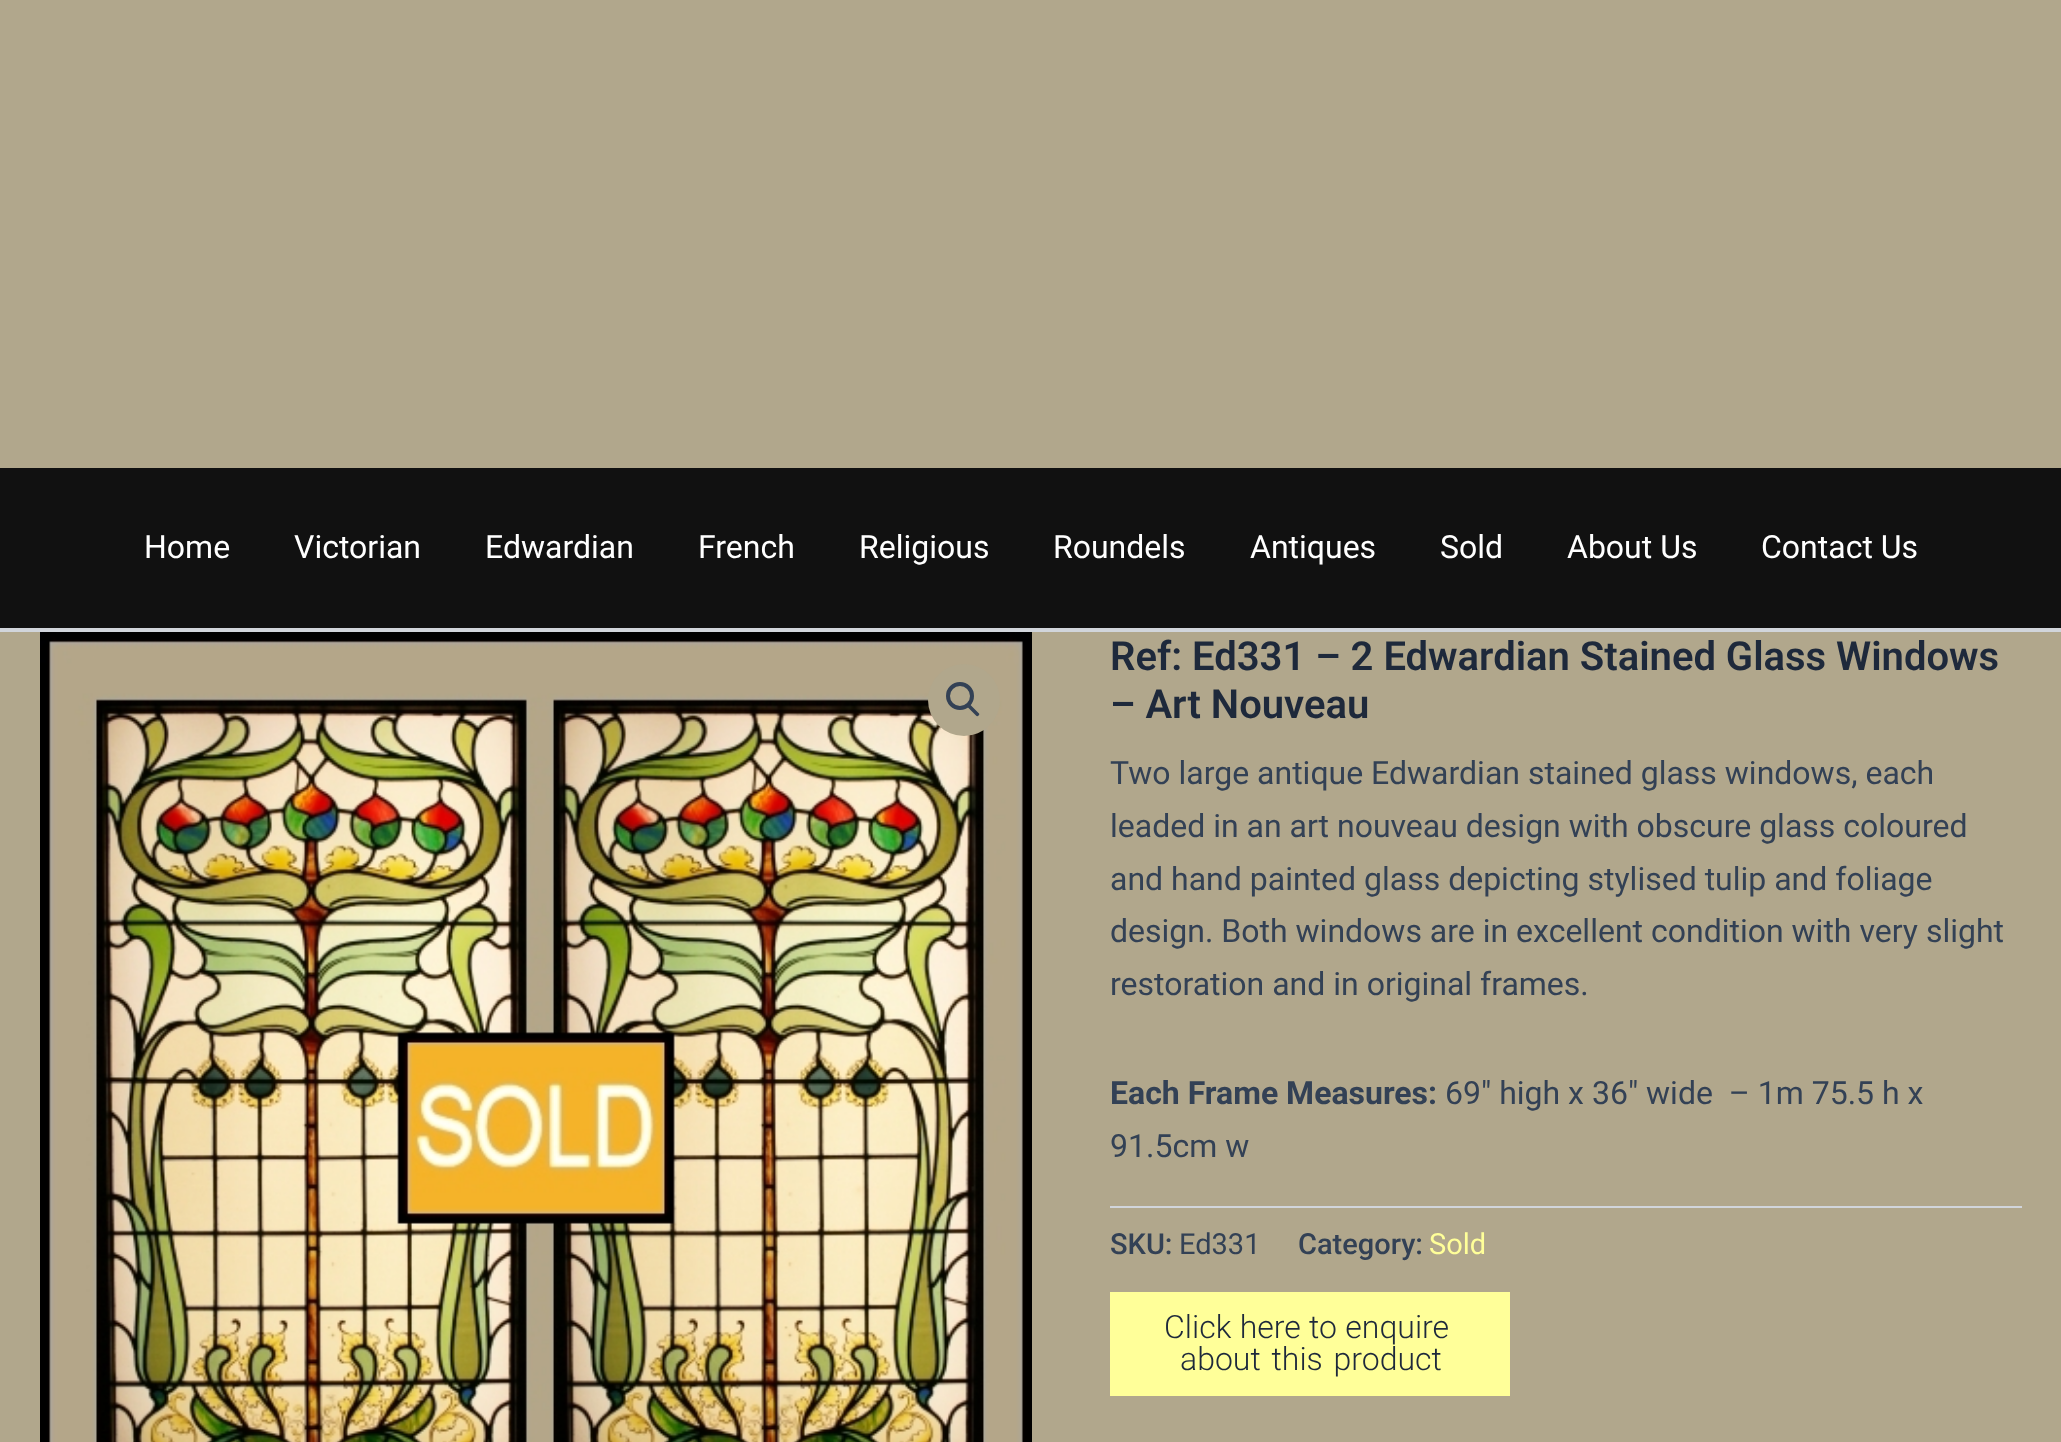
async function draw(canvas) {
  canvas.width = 2061;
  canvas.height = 1442;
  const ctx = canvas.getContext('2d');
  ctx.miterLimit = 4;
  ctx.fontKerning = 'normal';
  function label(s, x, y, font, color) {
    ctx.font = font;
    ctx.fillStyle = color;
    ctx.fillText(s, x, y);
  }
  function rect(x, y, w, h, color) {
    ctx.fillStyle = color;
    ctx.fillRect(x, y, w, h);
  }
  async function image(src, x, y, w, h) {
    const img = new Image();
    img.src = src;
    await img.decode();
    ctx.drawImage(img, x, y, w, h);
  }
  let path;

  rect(0, 0, 2061, 1442, '#b1a78c');
  rect(0, 468, 2061, 160, '#111');
  rect(0, 628, 2061, 4, '#d1d5db');
  label('Home', 144, 558, '32px Roboto', '#fff');
  label('Victorian', 294, 558, '32px Roboto', '#fff');
  label('Edwardian', 485, 558, '32px Roboto', '#fff');
  label('French', 698, 558, '32px Roboto', '#fff');
  label('Religious', 859, 558, '32px Roboto', '#fff');
  label('Roundels', 1053, 558, '32px Roboto', '#fff');
  label('Antiques', 1250, 558, '32px Roboto', '#fff');
  label('Sold', 1440, 558, '32px Roboto', '#fff');
  label('About Us', 1567, 558, '32px Roboto', '#fff');
  label('Contact Us', 1761, 558, '32px Roboto', '#fff');
  await image('assets/img1.png', 40, 632, 992, 810);
  ctx.fillStyle = '#b1a78c';
  ctx.beginPath();
  ctx.arc(964, 700, 36, 0, 2 * Math.PI);
  ctx.fill();
  ctx.beginPath();
  ctx.arc(960, 696, 12, 0, 2 * Math.PI);
  ctx.strokeStyle = '#334155';
  ctx.lineWidth = 4;
  ctx.stroke();
  ctx.fillStyle = '#334155';
  path = new Path2D('M967.5 704.5C968 703.5 969.5 703.5 970 704.5L978.5 713C979.5 713.5 979.5 715 978.5 715.5C978 716.5 976.5 716.5 976 715.5L967.5 707C966.5 706.5 966.5 705 967.5 704.5Z');
  ctx.fill(path);
  label('Ref: Ed331 – 2 Edwardian Stained Glass Windows', 1110, 670, '600 40px Roboto', '#1e293b');
  label('– Art Nouveau', 1110, 718, '600 40px Roboto', '#1e293b');
  label('Two large antique Edwardian stained glass windows, each', 1110, 784, '32px Roboto', '#334155');
  label('leaded in an art nouveau design with obscure glass coloured', 1110, 837, '32px Roboto', '#334155');
  label('and hand painted glass depicting stylised tulip and foliage', 1110, 890, '32px Roboto', '#334155');
  label('design. Both windows are in excellent condition with very slight', 1110, 942, '32px Roboto', '#334155');
  label('restoration and in original frames.', 1110, 995, '32px Roboto', '#334155');
  label('Each Frame Measures:', 1110, 1104, 'bold 32px Roboto', '#334155');
  label('69″ high x 36″ wide  – 1m 75.5 h x', 1445, 1104, '32px Roboto', '#334155');
  label('91.5cm w', 1110, 1157, '32px Roboto', '#334155');
  rect(1110, 1206, 912, 2, '#d1d5db');
  label('SKU:', 1110, 1254, '500 29px Roboto', '#334155');
  label('Ed331', 1179, 1254, '29px Roboto', '#334155');
  label('Category:', 1298, 1254, '500 29px Roboto', '#334155');
  label('Sold', 1429, 1254, '29px Roboto', '#ff9');
  rect(1110, 1292, 400, 104, '#ff9');
  ctx.wordSpacing = '0.5px';
  label('Click here to enquire', 1164, 1338, '300 32px Roboto', '#1e293b');
  ctx.wordSpacing = '3px';
  label('about this product', 1180, 1370, '300 32px Roboto', '#1e293b');
}

draw(document.querySelector('canvas'));
